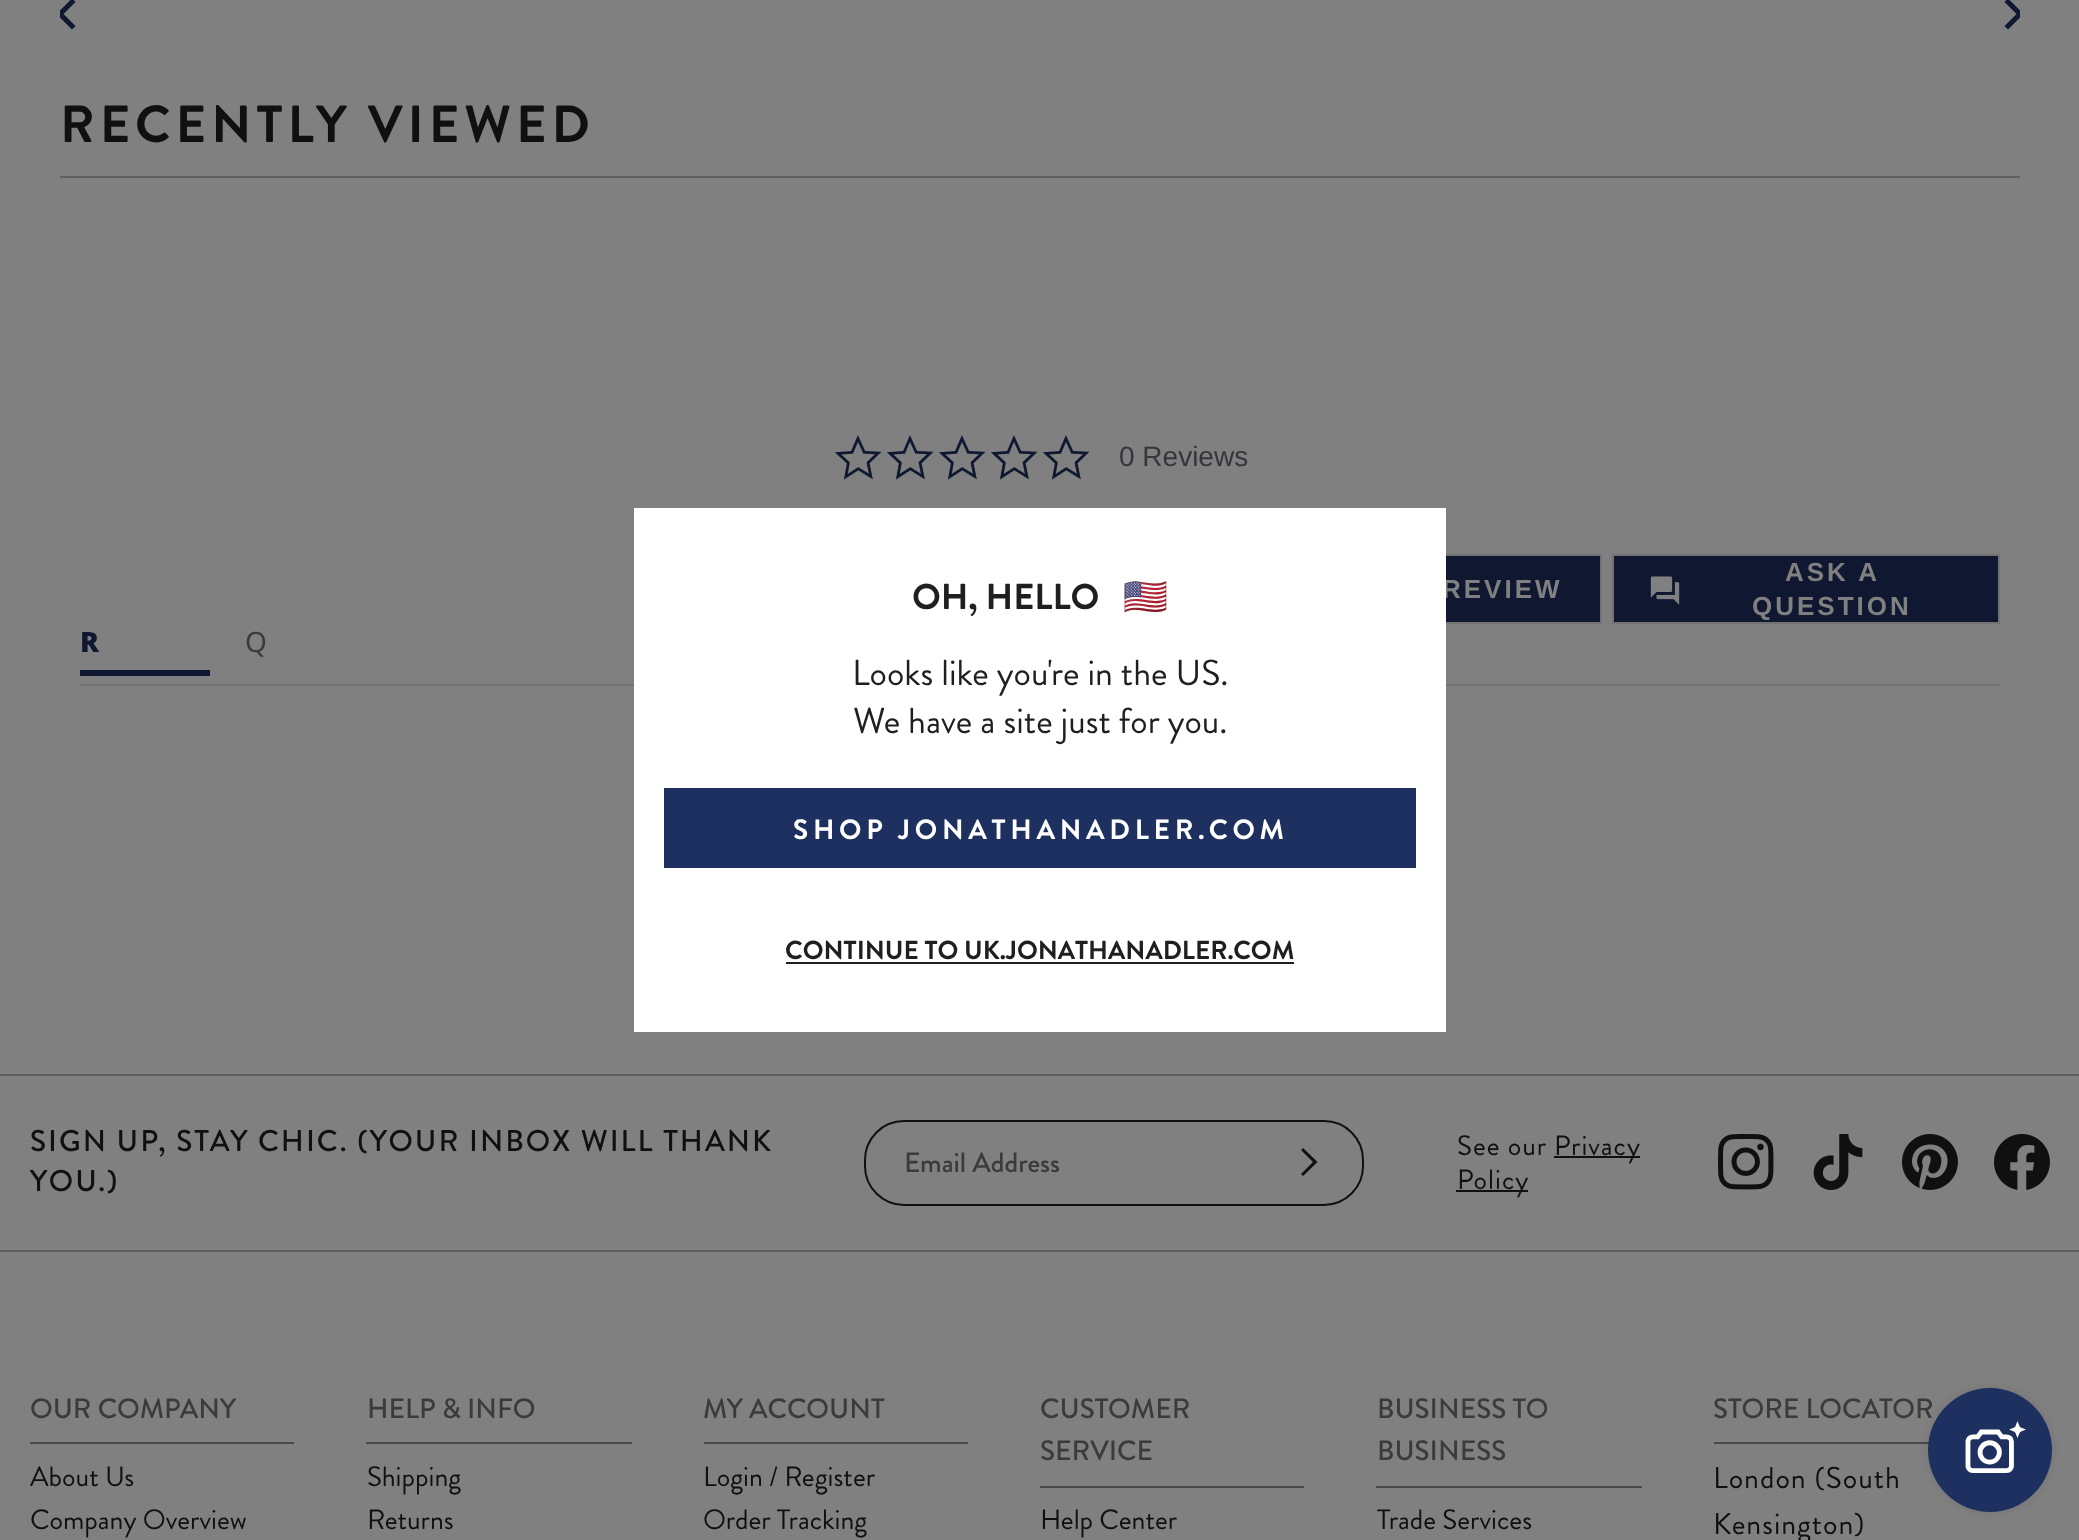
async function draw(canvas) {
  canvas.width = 2079;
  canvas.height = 1540;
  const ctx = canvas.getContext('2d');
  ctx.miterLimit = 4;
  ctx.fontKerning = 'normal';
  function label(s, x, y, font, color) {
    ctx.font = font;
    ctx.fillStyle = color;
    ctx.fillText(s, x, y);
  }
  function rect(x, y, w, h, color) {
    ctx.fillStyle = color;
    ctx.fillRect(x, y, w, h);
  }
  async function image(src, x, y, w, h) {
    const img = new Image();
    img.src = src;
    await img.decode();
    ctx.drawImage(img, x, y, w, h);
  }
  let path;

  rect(0, 0, 2079, 1540, '#808080');
  await image('assets/img1.png', 60, 0, 16, 30);
  await image('assets/img2.png', 2004, 0, 16, 30);
  rect(60, 176, 1960, 2, '#5f5f5f');
  ctx.letterSpacing = '5px';
  label('RECENTLY VIEWED', 60, 142, 'bold 52px Brandon Grotesque', '#101010');
  await image('assets/img3.png', 834, 435, 48, 45);
  await image('assets/img3.png', 886, 435, 48, 45);
  await image('assets/img3.png', 938, 435, 48, 45);
  await image('assets/img3.png', 990, 435, 48, 45);
  await image('assets/img3.png', 1042, 435, 48, 45);
  ctx.letterSpacing = '0px';
  label('0 Reviews', 1119, 466, '28px Liberation Sans', '#35363c');
  rect(1446, 556, 154, 66, '#0f1830');
  ctx.strokeStyle = '#727272';
  ctx.lineWidth = 2;
  ctx.strokeRect(1213, 555, 388, 68);
  ctx.letterSpacing = '3px';
  label('REVIEW', 1442, 598, 'bold 26px Liberation Sans', '#808080');
  ctx.fillStyle = '#0f1830';
  ctx.beginPath();
  ctx.rect(1613, 555, 386, 68);
  ctx.fill();
  ctx.stroke();
  await image('assets/img4.png', 1650, 576, 30, 29);
  label('ASK A', 1785, 581, 'bold 26px Liberation Sans', '#808080');
  label('QUESTION', 1752, 615, 'bold 26px Liberation Sans', '#808080');
  rect(80, 684, 1920, 2, '#727272');
  rect(80, 670, 130, 6, '#0f1830');
  ctx.letterSpacing = '0px';
  label('R', 80, 652, '900 28px Noto Sans', '#0f1830');
  label('Q', 245, 652, '28px Noto Sans', '#3b3b3b');
  rect(634, 508, 812, 524, '#fff');
  label('OH, HELLO', 912, 609, 'bold 36px Brandon Grotesque', '#1f1f1f');
  label('🇺🇸', 1123, 609, 'bold 36px Noto Color Emoji', '#1f1f1f');
  label('Looks like you\'re in the US.', 852, 685, '36px Brandon Grotesque', '#1f1f1f');
  label('We have a site just for you.', 853, 733, '36px Brandon Grotesque', '#1f1f1f');
  rect(664, 788, 752, 80, '#1d3060');
  ctx.letterSpacing = '4.7px';
  label('SHOP JONATHANADLER.COM', 793, 839, 'bold 28px Brandon Grotesque', '#fff');
  ctx.letterSpacing = '0px';
  label('CONTINUE TO UK.JONATHANADLER.COM', 785, 959, 'bold 26px Brandon Grotesque', '#1f1f1f');
  rect(786, 962, 508, 2, '#1f1f1f');
  rect(0, 1074, 2079, 2, '#5f5f5f');
  rect(0, 1250, 2079, 2, '#5f5f5f');
  ctx.letterSpacing = '2px';
  label('SIGN UP, STAY CHIC. (YOUR INBOX WILL THANK', 30, 1151, '500 30px Brandon Grotesque', '#101010');
  label('YOU.)', 30, 1191, '500 30px Brandon Grotesque', '#101010');
  ctx.beginPath();
  ctx.roundRect(865, 1121, 498, 84, 39);
  ctx.strokeStyle = '#101010';
  ctx.stroke();
  ctx.letterSpacing = '0px';
  label('Email Address', 904, 1172, '500 28px Brandon Grotesque', '#3b3b3b');
  ctx.fillStyle = '#101010';
  path = new Path2D('M1317.5 1162L1303 1176L1301 1174L1313 1162L1301 1150L1303 1148Z');
  ctx.fill(path, 'evenodd');
  ctx.letterSpacing = '1px';
  label('See our', 1457, 1155, '28px Brandon Grotesque', '#101010');
  rect(1554, 1156, 86, 2, '#101010');
  label('Privacy', 1554, 1155, '28px Brandon Grotesque', '#101010');
  rect(1456, 1190, 72, 2, '#101010');
  label('Policy', 1457, 1189, '28px Brandon Grotesque', '#101010');
  await image('assets/img5.png', 1718, 1134, 56, 56);
  await image('assets/img6.png', 1813, 1134, 50, 56);
  await image('assets/img7.png', 1902, 1134, 56, 56);
  await image('assets/img8.png', 1994, 1134, 56, 56);
  rect(30, 1442, 264, 2, '#4a4a4a');
  ctx.letterSpacing = '0px';
  label('OUR COMPANY', 30, 1418, '500 28px Brandon Grotesque', '#3b3b3b');
  label('About Us', 30, 1486, '28px Brandon Grotesque', '#101010');
  label('Company Overview', 30, 1529, '28px Brandon Grotesque', '#101010');
  rect(366, 1442, 266, 2, '#4a4a4a');
  label('HELP & INFO', 367, 1418, '500 28px Brandon Grotesque', '#3b3b3b');
  label('Shipping', 367, 1486, '28px Brandon Grotesque', '#101010');
  label('Returns', 367, 1529, '28px Brandon Grotesque', '#101010');
  rect(704, 1442, 264, 2, '#4a4a4a');
  label('MY ACCOUNT', 703, 1418, '500 28px Brandon Grotesque', '#3b3b3b');
  label('Login / Register', 703, 1486, '28px Brandon Grotesque', '#101010');
  label('Order Tracking', 703, 1529, '28px Brandon Grotesque', '#101010');
  rect(1040, 1486, 264, 2, '#4a4a4a');
  label('CUSTOMER', 1040, 1418, '500 28px Brandon Grotesque', '#3b3b3b');
  label('SERVICE', 1040, 1460, '500 28px Brandon Grotesque', '#3b3b3b');
  label('Help Center', 1040, 1529, '28px Brandon Grotesque', '#101010');
  rect(1376, 1486, 266, 2, '#4a4a4a');
  label('BUSINESS TO', 1377, 1418, '500 28px Brandon Grotesque', '#3b3b3b');
  label('BUSINESS', 1377, 1460, '500 28px Brandon Grotesque', '#3b3b3b');
  label('Trade Services', 1377, 1529, '28px Brandon Grotesque', '#101010');
  rect(1714, 1442, 215, 2, '#4a4a4a');
  label('STORE LOCATOR', 1713, 1418, '500 28px Brandon Grotesque', '#3b3b3b');
  ctx.letterSpacing = '1px';
  label('London (South', 1713, 1488, '30px Brandon Grotesque', '#101010');
  label('Kensington)', 1713, 1534, '30px Brandon Grotesque', '#101010');
  ctx.fillStyle = '#0000001a';
  ctx.filter = 'blur(4px)';
  ctx.beginPath();
  ctx.roundRect(1928, 1388, 124, 124, 62);
  ctx.fill();
  ctx.filter = 'none';
  await image('assets/img9.png', 1928, 1388, 124, 124);
}

draw(document.querySelector('canvas'));
